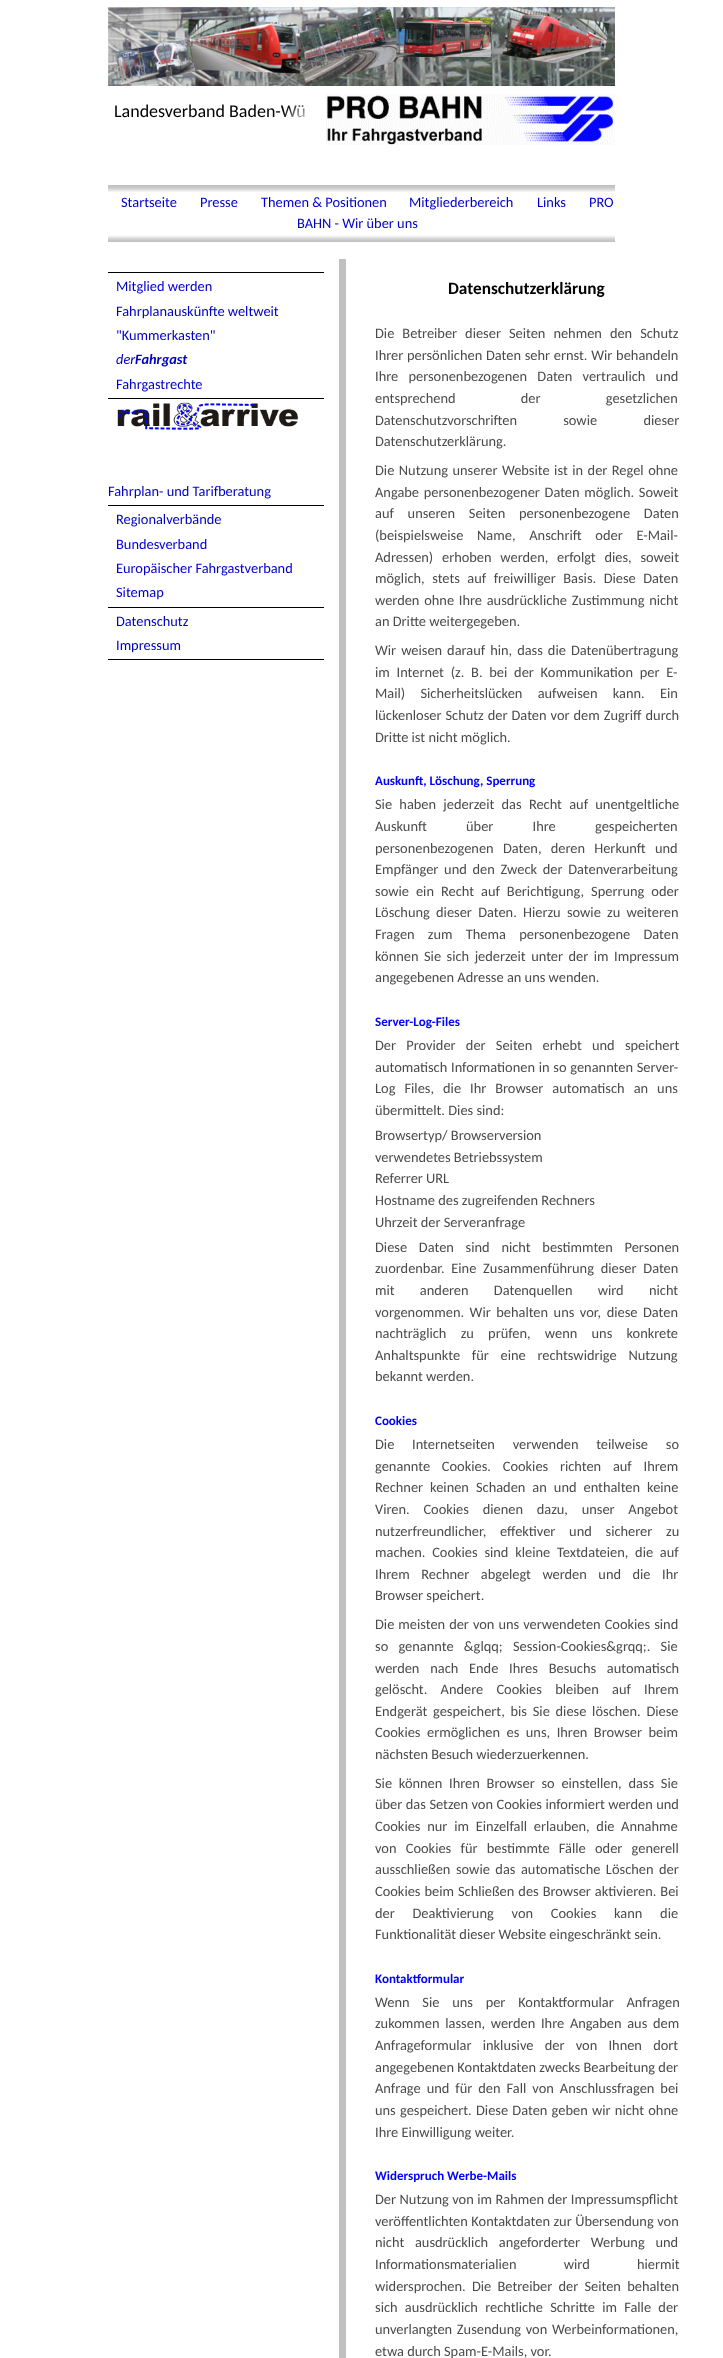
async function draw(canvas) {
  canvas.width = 723;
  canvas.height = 2358;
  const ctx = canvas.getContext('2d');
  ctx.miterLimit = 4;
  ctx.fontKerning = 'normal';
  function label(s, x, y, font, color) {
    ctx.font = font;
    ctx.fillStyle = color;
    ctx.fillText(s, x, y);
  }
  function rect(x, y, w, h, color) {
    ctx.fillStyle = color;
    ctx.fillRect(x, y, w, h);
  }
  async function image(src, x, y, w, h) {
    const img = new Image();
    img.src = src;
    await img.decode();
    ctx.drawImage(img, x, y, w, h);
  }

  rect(0, 0, 723, 2358, '#fff');
  await image('assets/img1.png', 108, 7, 507, 79);
  label('Landesverband Baden-Wü', 114, 117, '18px Carlito', '#000');
  await image('assets/img2.png', 283, 94, 332, 51);
  await image('assets/img3.png', 108, 235, 507, 7);
  await image('assets/img4.png', 108, 185, 507, 7);
  label('Startseite', 121, 207, '14.4px Carlito', '#0000c8');
  label('Presse', 200, 207, '14.4px Carlito', '#0000c8');
  label('Themen & Positionen', 261, 207, '14.4px Carlito', '#0000c8');
  label('Mitgliederbereich', 409, 207, '14.4px Carlito', '#0000c8');
  label('Links', 537, 207, '14.4px Carlito', '#0000c8');
  label('PRO', 589, 207, '14.4px Carlito', '#0000c8');
  label('BAHN - Wir über uns', 297, 228, '14.4px Carlito', '#0000c8');
  rect(108, 272, 216, 1, '#000');
  label('Mitglied werden', 116, 291, '14.4px Carlito', '#0000c8');
  label('Fahrplanauskünfte weltweit', 116, 316, '14.4px Carlito', '#0000c8');
  label('"Kummerkasten"', 116, 340, '14.4px Carlito', '#0000c8');
  label('der', 116, 364, 'italic 14.4px Carlito', '#0000c8');
  label('Fahrgast', 135, 364, 'italic bold 14.4px Carlito', '#0000c8');
  label('Fahrgastrechte', 116, 389, '14.4px Carlito', '#0000c8');
  rect(108, 398, 216, 1, '#000');
  await image('assets/img5.png', 117, 402, 181, 28);
  label('Fahrplan- und Tarifberatung', 108, 496, '14.4px Carlito', '#0000c8');
  rect(108, 505, 216, 1, '#000');
  label('Regionalverbände', 116, 524, '14.4px Carlito', '#0000c8');
  label('Bundesverband', 116, 549, '14.4px Carlito', '#0000c8');
  label('Europäischer Fahrgastverband', 116, 573, '14.4px Carlito', '#0000c8');
  label('Sitemap', 116, 597, '14.4px Carlito', '#0000c8');
  rect(108, 607, 216, 1, '#000');
  label('Datenschutz', 116, 626, '14.4px Carlito', '#0000c8');
  label('Impressum', 116, 650, '14.4px Carlito', '#0000c8');
  rect(108, 659, 216, 1, '#000');
  rect(339, 259, 7, 2099, '#c0c0c0');
  label('Datenschutzerklärung', 448, 294, 'bold 17.25px Carlito', '#000');
  ctx.wordSpacing = '4.75px';
  label('Die Betreiber dieser Seiten nehmen den Schutz', 375, 338, '14.4px Carlito', '#4b4b4d');
  ctx.wordSpacing = '0.5px';
  label('Ihrer persönlichen Daten sehr ernst. Wir behandeln', 375, 360, '14.4px Carlito', '#4b4b4d');
  ctx.wordSpacing = '7px';
  label('Ihre personenbezogenen Daten vertraulich und', 375, 381, '14.4px Carlito', '#4b4b4d');
  ctx.wordSpacing = '62px';
  label('entsprechend der gesetzlichen', 375, 403, '14.4px Carlito', '#4b4b4d');
  ctx.wordSpacing = '43px';
  label('Datenschutzvorschriften sowie dieser', 375, 425, '14.4px Carlito', '#4b4b4d');
  ctx.wordSpacing = '0px';
  label('Datenschutzerklärung.', 375, 446, '14.4px Carlito', '#4b4b4d');
  ctx.wordSpacing = '1.25px';
  label('Die Nutzung unserer Website ist in der Regel ohne', 375, 475, '14.4px Carlito', '#4b4b4d');
  ctx.wordSpacing = '1.5px';
  label('Angabe personenbezogener Daten möglich. Soweit', 375, 497, '14.4px Carlito', '#4b4b4d');
  ctx.wordSpacing = '10.5px';
  label('auf unseren Seiten personenbezogene Daten', 375, 518, '14.4px Carlito', '#4b4b4d');
  label('(beispielsweise Name, Anschrift oder E-Mail-', 375, 540, '14.4px Carlito', '#4b4b4d');
  ctx.wordSpacing = '5.5px';
  label('Adressen) erhoben werden, erfolgt dies, soweit', 375, 562, '14.4px Carlito', '#4b4b4d');
  ctx.wordSpacing = '4.25px';
  label('möglich, stets auf freiwilliger Basis. Diese Daten', 375, 583, '14.4px Carlito', '#4b4b4d');
  ctx.wordSpacing = '1.5px';
  label('werden ohne Ihre ausdrückliche Zustimmung nicht', 375, 605, '14.4px Carlito', '#4b4b4d');
  ctx.wordSpacing = '0px';
  label('an Dritte weitergegeben.', 375, 626, '14.4px Carlito', '#4b4b4d');
  ctx.wordSpacing = '1.75px';
  label('Wir weisen darauf hin, dass die Datenübertragung', 375, 655, '14.4px Carlito', '#4b4b4d');
  ctx.wordSpacing = '3.5px';
  label('im Internet (z. B. bei der Kommunikation per E-', 375, 677, '14.4px Carlito', '#4b4b4d');
  ctx.wordSpacing = '12px';
  label('Mail) Sicherheitslücken aufweisen kann. Ein', 375, 698, '14.4px Carlito', '#4b4b4d');
  ctx.wordSpacing = '0.75px';
  label('lückenloser Schutz der Daten vor dem Zugriff durch', 375, 720, '14.4px Carlito', '#4b4b4d');
  ctx.wordSpacing = '0px';
  label('Dritte ist nicht möglich.', 375, 742, '14.4px Carlito', '#4b4b4d');
  label('Auskunft, Löschung, Sperrung', 375, 785, 'bold 13px Carlito', '#00f');
  ctx.wordSpacing = '4px';
  label('Sie haben jederzeit das Recht auf unentgeltliche', 375, 809, '14.4px Carlito', '#4b4b4d');
  ctx.wordSpacing = '36px';
  label('Auskunft über Ihre gespeicherten', 375, 831, '14.4px Carlito', '#4b4b4d');
  ctx.wordSpacing = '6px';
  label('personenbezogenen Daten, deren Herkunft und', 375, 853, '14.4px Carlito', '#4b4b4d');
  ctx.wordSpacing = '2.5px';
  label('Empfänger und den Zweck der Datenverarbeitung', 375, 874, '14.4px Carlito', '#4b4b4d');
  ctx.wordSpacing = '3.75px';
  label('sowie ein Recht auf Berichtigung, Sperrung oder', 375, 896, '14.4px Carlito', '#4b4b4d');
  ctx.wordSpacing = '3px';
  label('Löschung dieser Daten. Hierzu sowie zu weiteren', 375, 917, '14.4px Carlito', '#4b4b4d');
  ctx.wordSpacing = '10px';
  label('Fragen zum Thema personenbezogene Daten', 375, 939, '14.4px Carlito', '#4b4b4d');
  ctx.wordSpacing = '2.25px';
  label('können Sie sich jederzeit unter der im Impressum', 375, 961, '14.4px Carlito', '#4b4b4d');
  ctx.wordSpacing = '0px';
  label('angegebenen Adresse an uns wenden.', 375, 982, '14.4px Carlito', '#4b4b4d');
  label('Server-Log-Files', 375, 1026, 'bold 13px Carlito', '#00f');
  ctx.wordSpacing = '7px';
  label('Der Provider der Seiten erhebt und speichert', 375, 1050, '14.4px Carlito', '#4b4b4d');
  ctx.wordSpacing = '0.5px';
  label('automatisch Informationen in so genannten Server-', 375, 1072, '14.4px Carlito', '#4b4b4d');
  ctx.wordSpacing = '5.75px';
  label('Log Files, die Ihr Browser automatisch an uns', 375, 1093, '14.4px Carlito', '#4b4b4d');
  ctx.wordSpacing = '0px';
  label('übermittelt. Dies sind:', 375, 1115, '14.4px Carlito', '#4b4b4d');
  label('Browsertyp/ Browserversion', 375, 1140, '14.4px Carlito', '#4b4b4d');
  label('verwendetes Betriebssystem', 375, 1162, '14.4px Carlito', '#4b4b4d');
  label('Referrer URL', 375, 1183, '14.4px Carlito', '#4b4b4d');
  label('Hostname des zugreifenden Rechners', 375, 1205, '14.4px Carlito', '#4b4b4d');
  label('Uhrzeit der Serveranfrage', 375, 1227, '14.4px Carlito', '#4b4b4d');
  ctx.wordSpacing = '8.5px';
  label('Diese Daten sind nicht bestimmten Personen', 375, 1252, '14.4px Carlito', '#4b4b4d');
  ctx.wordSpacing = '3.5px';
  label('zuordenbar. Eine Zusammenführung dieser Daten', 375, 1273, '14.4px Carlito', '#4b4b4d');
  ctx.wordSpacing = '22px';
  label('mit anderen Datenquellen wird nicht', 375, 1295, '14.4px Carlito', '#4b4b4d');
  ctx.wordSpacing = '2.25px';
  label('vorgenommen. Wir behalten uns vor, diese Daten', 375, 1317, '14.4px Carlito', '#4b4b4d');
  ctx.wordSpacing = '11px';
  label('nachträglich zu prüfen, wenn uns konkrete', 375, 1338, '14.4px Carlito', '#4b4b4d');
  ctx.wordSpacing = '8.5px';
  label('Anhaltspunkte für eine rechtswidrige Nutzung', 375, 1360, '14.4px Carlito', '#4b4b4d');
  ctx.wordSpacing = '0px';
  label('bekannt werden.', 375, 1381, '14.4px Carlito', '#4b4b4d');
  label('Cookies', 375, 1425, 'bold 13px Carlito', '#00f');
  ctx.wordSpacing = '14.5px';
  label('Die Internetseiten verwenden teilweise so', 375, 1449, '14.4px Carlito', '#4b4b4d');
  ctx.wordSpacing = '8.5px';
  label('genannte Cookies. Cookies richten auf Ihrem', 375, 1471, '14.4px Carlito', '#4b4b4d');
  ctx.wordSpacing = '3.75px';
  label('Rechner keinen Schaden an und enthalten keine', 375, 1492, '14.4px Carlito', '#4b4b4d');
  ctx.wordSpacing = '10.5px';
  label('Viren. Cookies dienen dazu, unser Angebot', 375, 1514, '14.4px Carlito', '#4b4b4d');
  label('nutzerfreundlicher, effektiver und sicherer zu', 375, 1536, '14.4px Carlito', '#4b4b4d');
  ctx.wordSpacing = '3.5px';
  label('machen. Cookies sind kleine Textdateien, die auf', 375, 1557, '14.4px Carlito', '#4b4b4d');
  ctx.wordSpacing = '8.25px';
  label('Ihrem Rechner abgelegt werden und die Ihr', 375, 1579, '14.4px Carlito', '#4b4b4d');
  ctx.wordSpacing = '0px';
  label('Browser speichert.', 375, 1600, '14.4px Carlito', '#4b4b4d');
  ctx.wordSpacing = '0.75px';
  label('Die meisten der von uns verwendeten Cookies sind', 375, 1629, '14.4px Carlito', '#4b4b4d');
  ctx.wordSpacing = '7px';
  label('so genannte &glqq; Session-Cookies&grqq;. Sie', 375, 1651, '14.4px Carlito', '#4b4b4d');
  ctx.wordSpacing = '7.5px';
  label('werden nach Ende Ihres Besuchs automatisch', 375, 1673, '14.4px Carlito', '#4b4b4d');
  ctx.wordSpacing = '10px';
  label('gelöscht. Andere Cookies bleiben auf Ihrem', 375, 1694, '14.4px Carlito', '#4b4b4d');
  ctx.wordSpacing = '2.5px';
  label('Endgerät gespeichert, bis Sie diese löschen. Diese', 375, 1716, '14.4px Carlito', '#4b4b4d');
  ctx.wordSpacing = '3.25px';
  label('Cookies ermöglichen es uns, Ihren Browser beim', 375, 1737, '14.4px Carlito', '#4b4b4d');
  ctx.wordSpacing = '0px';
  label('nächsten Besuch wiederzuerkennen.', 375, 1759, '14.4px Carlito', '#4b4b4d');
  ctx.wordSpacing = '3.5px';
  label('Sie können Ihren Browser so einstellen, dass Sie', 375, 1788, '14.4px Carlito', '#4b4b4d');
  ctx.wordSpacing = '0.25px';
  label('über das Setzen von Cookies informiert werden und', 375, 1809, '14.4px Carlito', '#4b4b4d');
  ctx.wordSpacing = '3.5px';
  label('Cookies nur im Einzelfall erlauben, die Annahme', 375, 1831, '14.4px Carlito', '#4b4b4d');
  ctx.wordSpacing = '6px';
  label('von Cookies für bestimmte Fälle oder generell', 375, 1853, '14.4px Carlito', '#4b4b4d');
  ctx.wordSpacing = '2.25px';
  label('ausschließen sowie das automatische Löschen der', 375, 1874, '14.4px Carlito', '#4b4b4d');
  ctx.wordSpacing = '0.75px';
  label('Cookies beim Schließen des Browser aktivieren. Bei', 375, 1896, '14.4px Carlito', '#4b4b4d');
  ctx.wordSpacing = '14.5px';
  label('der Deaktivierung von Cookies kann die', 375, 1918, '14.4px Carlito', '#4b4b4d');
  ctx.wordSpacing = '0px';
  label('Funktionalität dieser Website eingeschränkt sein.', 375, 1939, '14.4px Carlito', '#4b4b4d');
  label('Kontaktformular', 375, 1983, 'bold 13px Carlito', '#00f');
  ctx.wordSpacing = '9.5px';
  label('Wenn Sie uns per Kontaktformular Anfragen', 375, 2007, '14.4px Carlito', '#4b4b4d');
  ctx.wordSpacing = '2.5px';
  label('zukommen lassen, werden Ihre Angaben aus dem', 375, 2028, '14.4px Carlito', '#4b4b4d');
  ctx.wordSpacing = '8px';
  label('Anfrageformular inklusive der von Ihnen dort', 375, 2050, '14.4px Carlito', '#4b4b4d');
  ctx.wordSpacing = '0px';
  label('angegebenen Kontaktdaten zwecks Bearbeitung der', 375, 2072, '14.4px Carlito', '#4b4b4d');
  ctx.wordSpacing = '2.75px';
  label('Anfrage und für den Fall von Anschlussfragen bei', 375, 2093, '14.4px Carlito', '#4b4b4d');
  ctx.wordSpacing = '1px';
  label('uns gespeichert. Diese Daten geben wir nicht ohne', 375, 2115, '14.4px Carlito', '#4b4b4d');
  ctx.wordSpacing = '0px';
  label('Ihre Einwilligung weiter.', 375, 2137, '14.4px Carlito', '#4b4b4d');
  label('Widerspruch Werbe-Mails', 375, 2180, 'bold 13px Carlito', '#00f');
  ctx.wordSpacing = '0.25px';
  label('Der Nutzung von im Rahmen der Impressumspflicht', 375, 2204, '14.4px Carlito', '#4b4b4d');
  label('veröffentlichten Kontaktdaten zur Übersendung von', 375, 2226, '14.4px Carlito', '#4b4b4d');
  ctx.wordSpacing = '7.5px';
  label('nicht ausdrücklich angeforderter Werbung und', 375, 2247, '14.4px Carlito', '#4b4b4d');
  ctx.wordSpacing = '44px';
  label('Informationsmaterialien wird hiermit', 375, 2269, '14.4px Carlito', '#4b4b4d');
  ctx.wordSpacing = '3px';
  label('widersprochen. Die Betreiber der Seiten behalten', 375, 2291, '14.4px Carlito', '#4b4b4d');
  ctx.wordSpacing = '4px';
  label('sich ausdrücklich rechtliche Schritte im Falle der', 375, 2312, '14.4px Carlito', '#4b4b4d');
  ctx.wordSpacing = '1.5px';
  label('unverlangten Zusendung von Werbeinformationen,', 375, 2334, '14.4px Carlito', '#4b4b4d');
  ctx.wordSpacing = '0px';
  label('etwa durch Spam-E-Mails, vor.', 375, 2356, '14.4px Carlito', '#4b4b4d');
}

draw(document.querySelector('canvas'));
